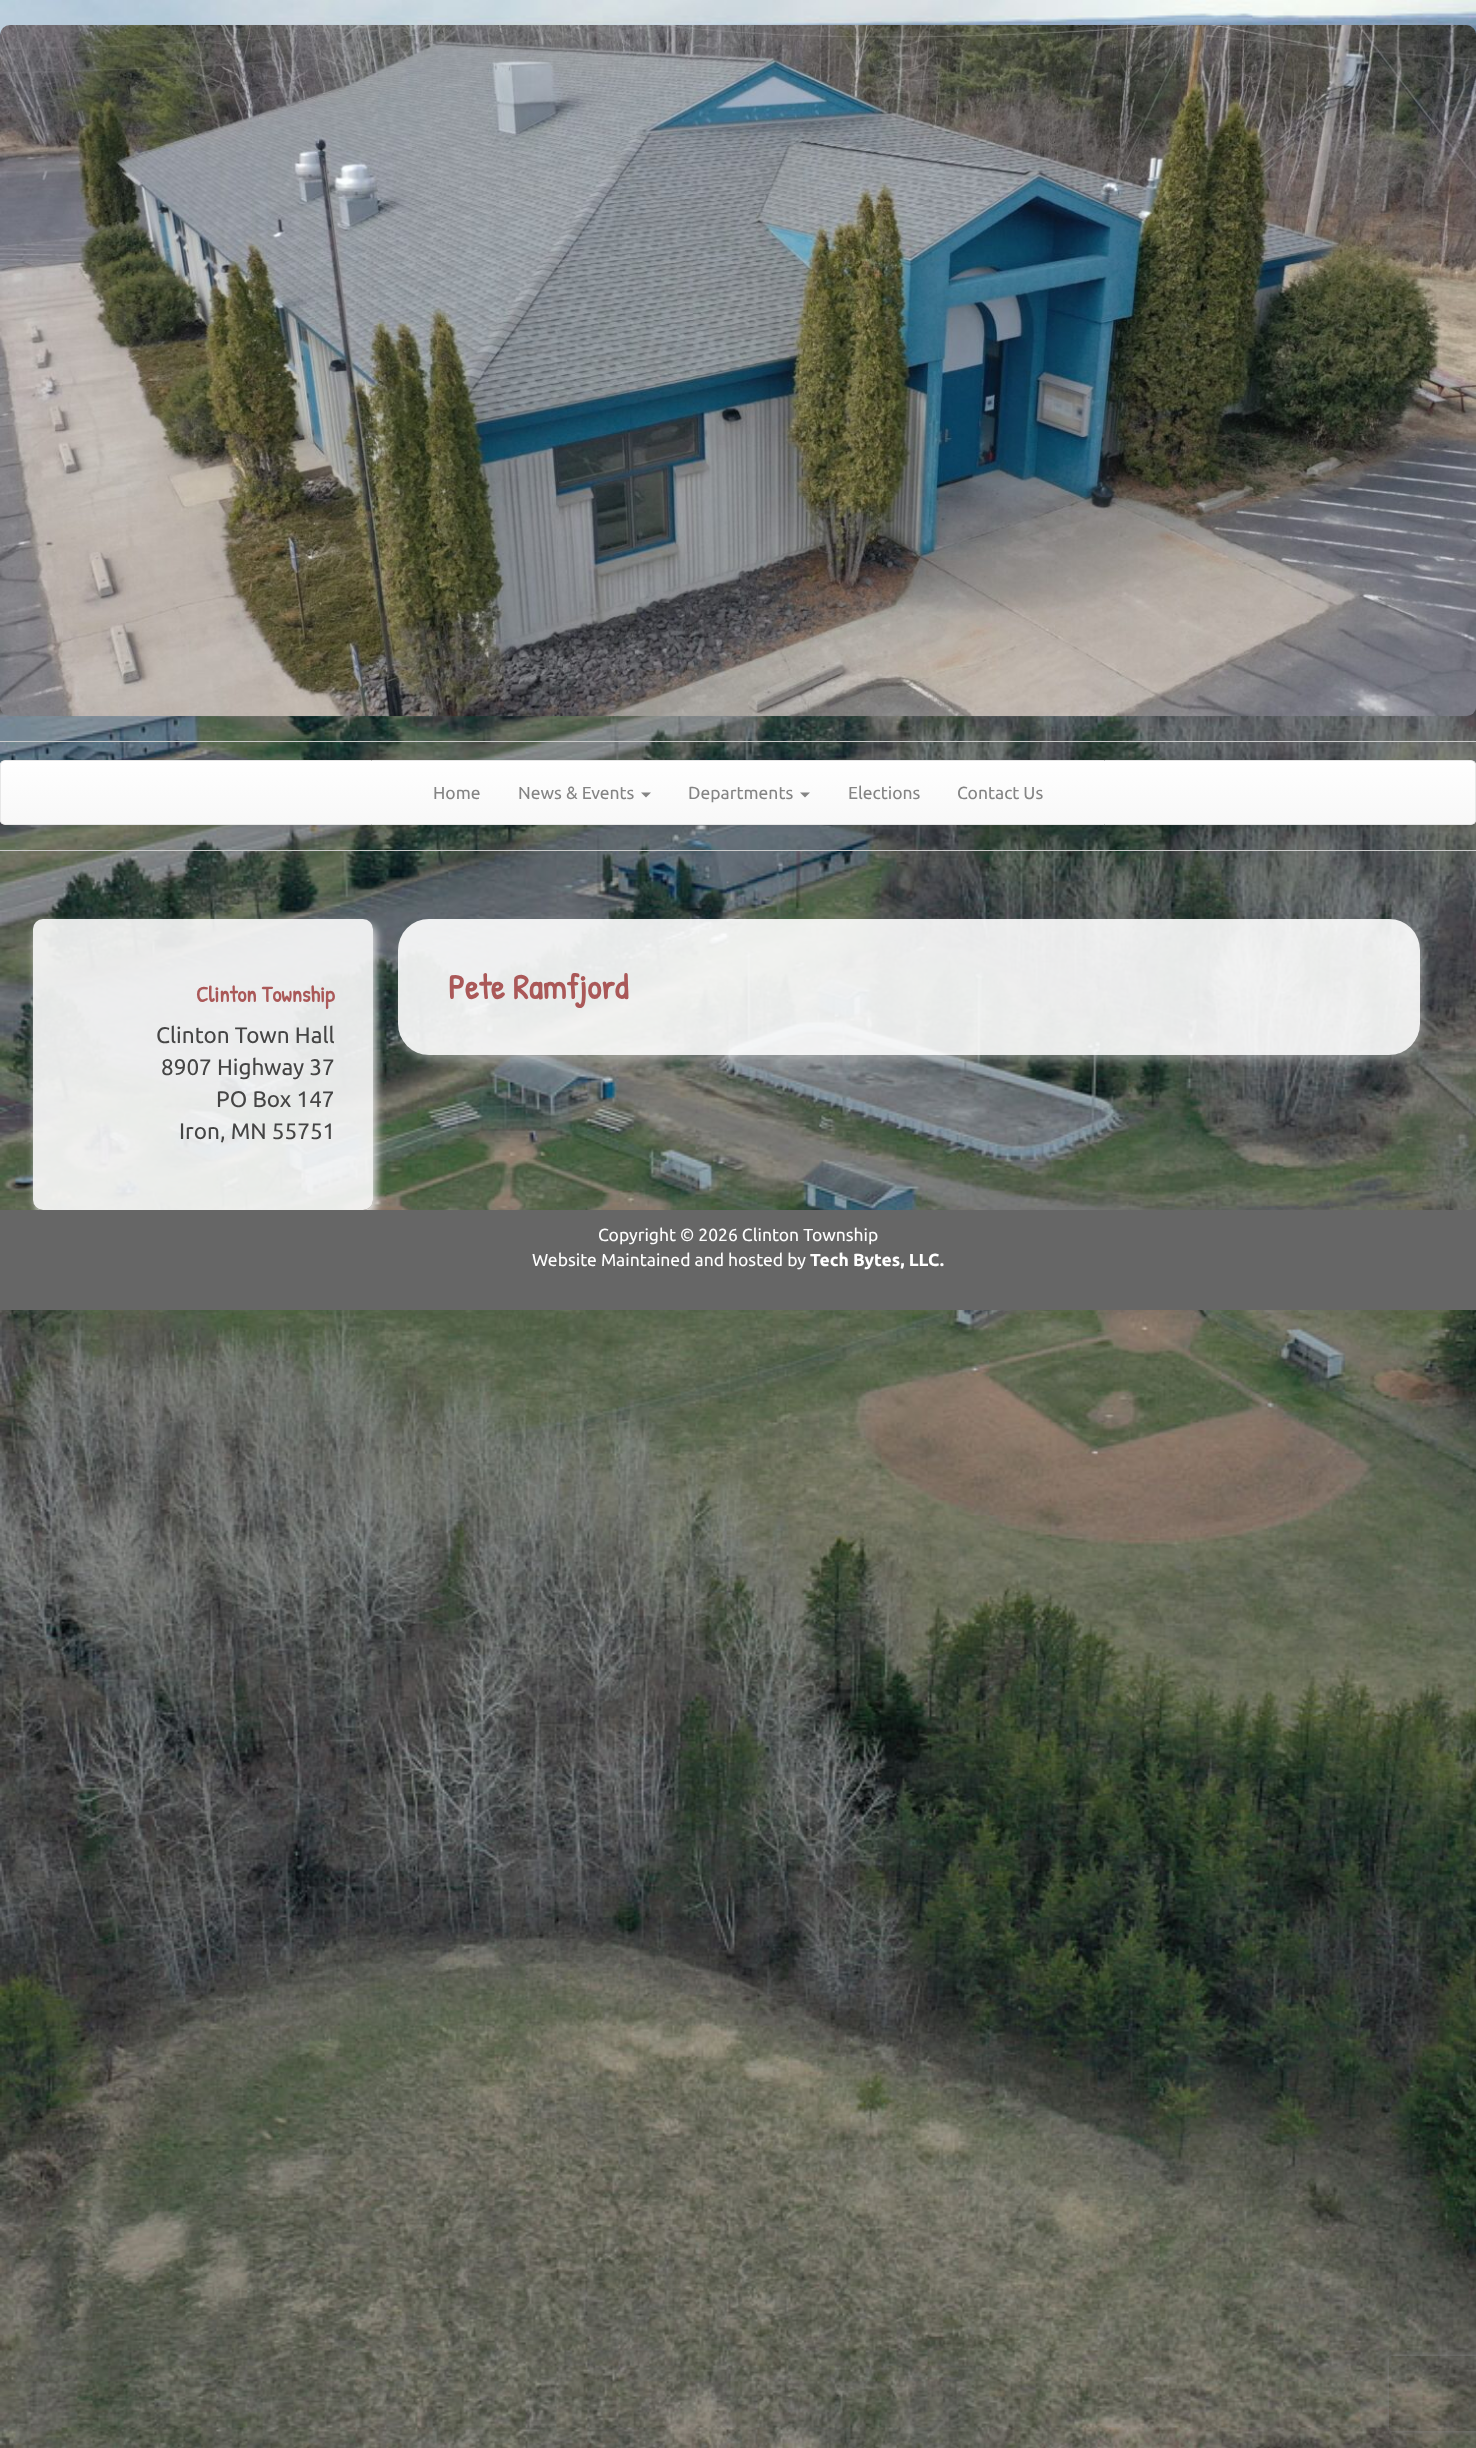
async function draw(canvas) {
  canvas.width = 1476;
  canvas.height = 2448;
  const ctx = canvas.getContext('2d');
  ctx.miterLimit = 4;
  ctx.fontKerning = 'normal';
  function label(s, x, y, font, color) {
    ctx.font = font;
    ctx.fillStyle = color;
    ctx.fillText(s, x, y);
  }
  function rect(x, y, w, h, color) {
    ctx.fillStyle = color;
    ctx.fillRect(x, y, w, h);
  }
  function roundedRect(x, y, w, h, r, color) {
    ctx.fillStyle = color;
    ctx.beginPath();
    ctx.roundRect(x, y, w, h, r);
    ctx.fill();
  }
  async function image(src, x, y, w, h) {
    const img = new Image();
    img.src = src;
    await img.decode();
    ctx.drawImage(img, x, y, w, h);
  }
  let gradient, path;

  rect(0, 0, 1476, 2448, '#fff');
  await image('assets/img1.png', 0, 0, 1476, 2448);
  await image('assets/img2.png', 0, 25, 1476, 692);
  rect(0, 741, 1476, 1, '#ccc');
  ctx.fillStyle = '#00000012';
  ctx.filter = 'blur(3px)';
  ctx.beginPath();
  ctx.roundRect(0, 761, 1476, 65, 5);
  ctx.fill();
  ctx.filter = 'none';
  ctx.save();
  ctx.beginPath();
  ctx.roundRect(0, 760, 1476, 65, 5);
  ctx.clip();
  gradient = ctx.createLinearGradient(738, 761, 738, 824);
  gradient.addColorStop(0, '#fff');
  gradient.addColorStop(1, '#f8f8f8');
  ctx.fillStyle = gradient;
  ctx.fillRect(0, 761, 1476, 63);
  ctx.restore();
  ctx.beginPath();
  ctx.roundRect(0.5, 760.5, 1475, 64, 4.5);
  ctx.strokeStyle = '#e7e7e7';
  ctx.stroke();
  label('Home', 433, 799, '17.5px Ubuntu', '#848484');
  label('News & Events', 518, 799, '17.5px Ubuntu', '#848484');
  path = new Path2D('M641 792.5H651L646 797.5Z');
  ctx.fill(path);
  label('Departments', 688, 799, '17.5px Ubuntu', '#848484');
  path = new Path2D('M800 792.5H810L805 797.5Z');
  ctx.fill(path);
  label('Elections', 848, 799, '17.5px Ubuntu', '#848484');
  label('Contact Us', 957, 799, '17.5px Ubuntu', '#848484');
  rect(0, 850, 1476, 1, '#ccc');
  ctx.save();
  path = new Path2D('M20 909H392V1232H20ZM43 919H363C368.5 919 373 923.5 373 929V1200C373 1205.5 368.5 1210 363 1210H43C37.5 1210 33 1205.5 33 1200V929C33 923.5 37.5 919 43 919Z');
  ctx.clip(path, 'evenodd');
  ctx.fillStyle = '#eeeeeee6';
  ctx.filter = 'blur(5px)';
  ctx.beginPath();
  ctx.roundRect(36, 925, 340, 291, 10);
  ctx.fill();
  ctx.filter = 'none';
  ctx.restore();
  roundedRect(33, 919, 340, 291, 10, '#fcfcfce6');
  label('Clinton Township', 196, 1002, 'bold 22.5px Patrick Hand', '#aa5858');
  label('Clinton Town Hall', 156, 1043, '22.5px Ubuntu', '#454545');
  label('8907 Highway 37', 161, 1075, '22.5px Ubuntu', '#454545');
  label('PO Box 147', 216, 1107, '22.5px Ubuntu', '#454545');
  label('Iron, MN 55751', 179, 1139, '22.5px Ubuntu', '#454545');
  ctx.save();
  path = new Path2D('M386 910H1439V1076H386ZM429 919H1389C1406 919 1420 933 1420 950V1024C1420 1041 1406 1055 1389 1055H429C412 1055 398 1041 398 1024V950C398 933 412 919 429 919Z');
  ctx.clip(path, 'evenodd');
  ctx.fillStyle = '#c8c8c873';
  ctx.filter = 'blur(4.5px)';
  ctx.beginPath();
  ctx.roundRect(401, 925, 1023, 136, 31);
  ctx.fill();
  ctx.filter = 'none';
  ctx.restore();
  roundedRect(398, 919, 1022, 136, 31, '#ffffffe6');
  label('Pete Ramfjord', 448, 999, 'bold 35px Patrick Hand', '#aa5858');
  rect(0, 1210, 1476, 100, '#666');
  label('Copyright © 2026 Clinton Township', 598, 1241, '17.5px Ubuntu', '#fff');
  label('Website Maintained and hosted by', 532, 1266, '17.5px Ubuntu', '#fff');
  label('Tech Bytes, LLC.', 810, 1266, 'bold 17.5px Ubuntu', '#fff');
  ctx.save();
  path = new Path2D('M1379 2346H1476V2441H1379ZM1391.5 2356H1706.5C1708 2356 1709 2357 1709 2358.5V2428.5C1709 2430 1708 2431 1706.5 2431H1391.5C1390 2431 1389 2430 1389 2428.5V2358.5C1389 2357 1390 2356 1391.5 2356Z');
  ctx.clip(path, 'evenodd');
  ctx.fillStyle = '#808080';
  ctx.filter = 'blur(3px)';
  ctx.beginPath();
  ctx.roundRect(1389, 2356, 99, 75, 2.5);
  ctx.fill();
  ctx.filter = 'none';
  ctx.restore();
}

draw(document.querySelector('canvas'));
